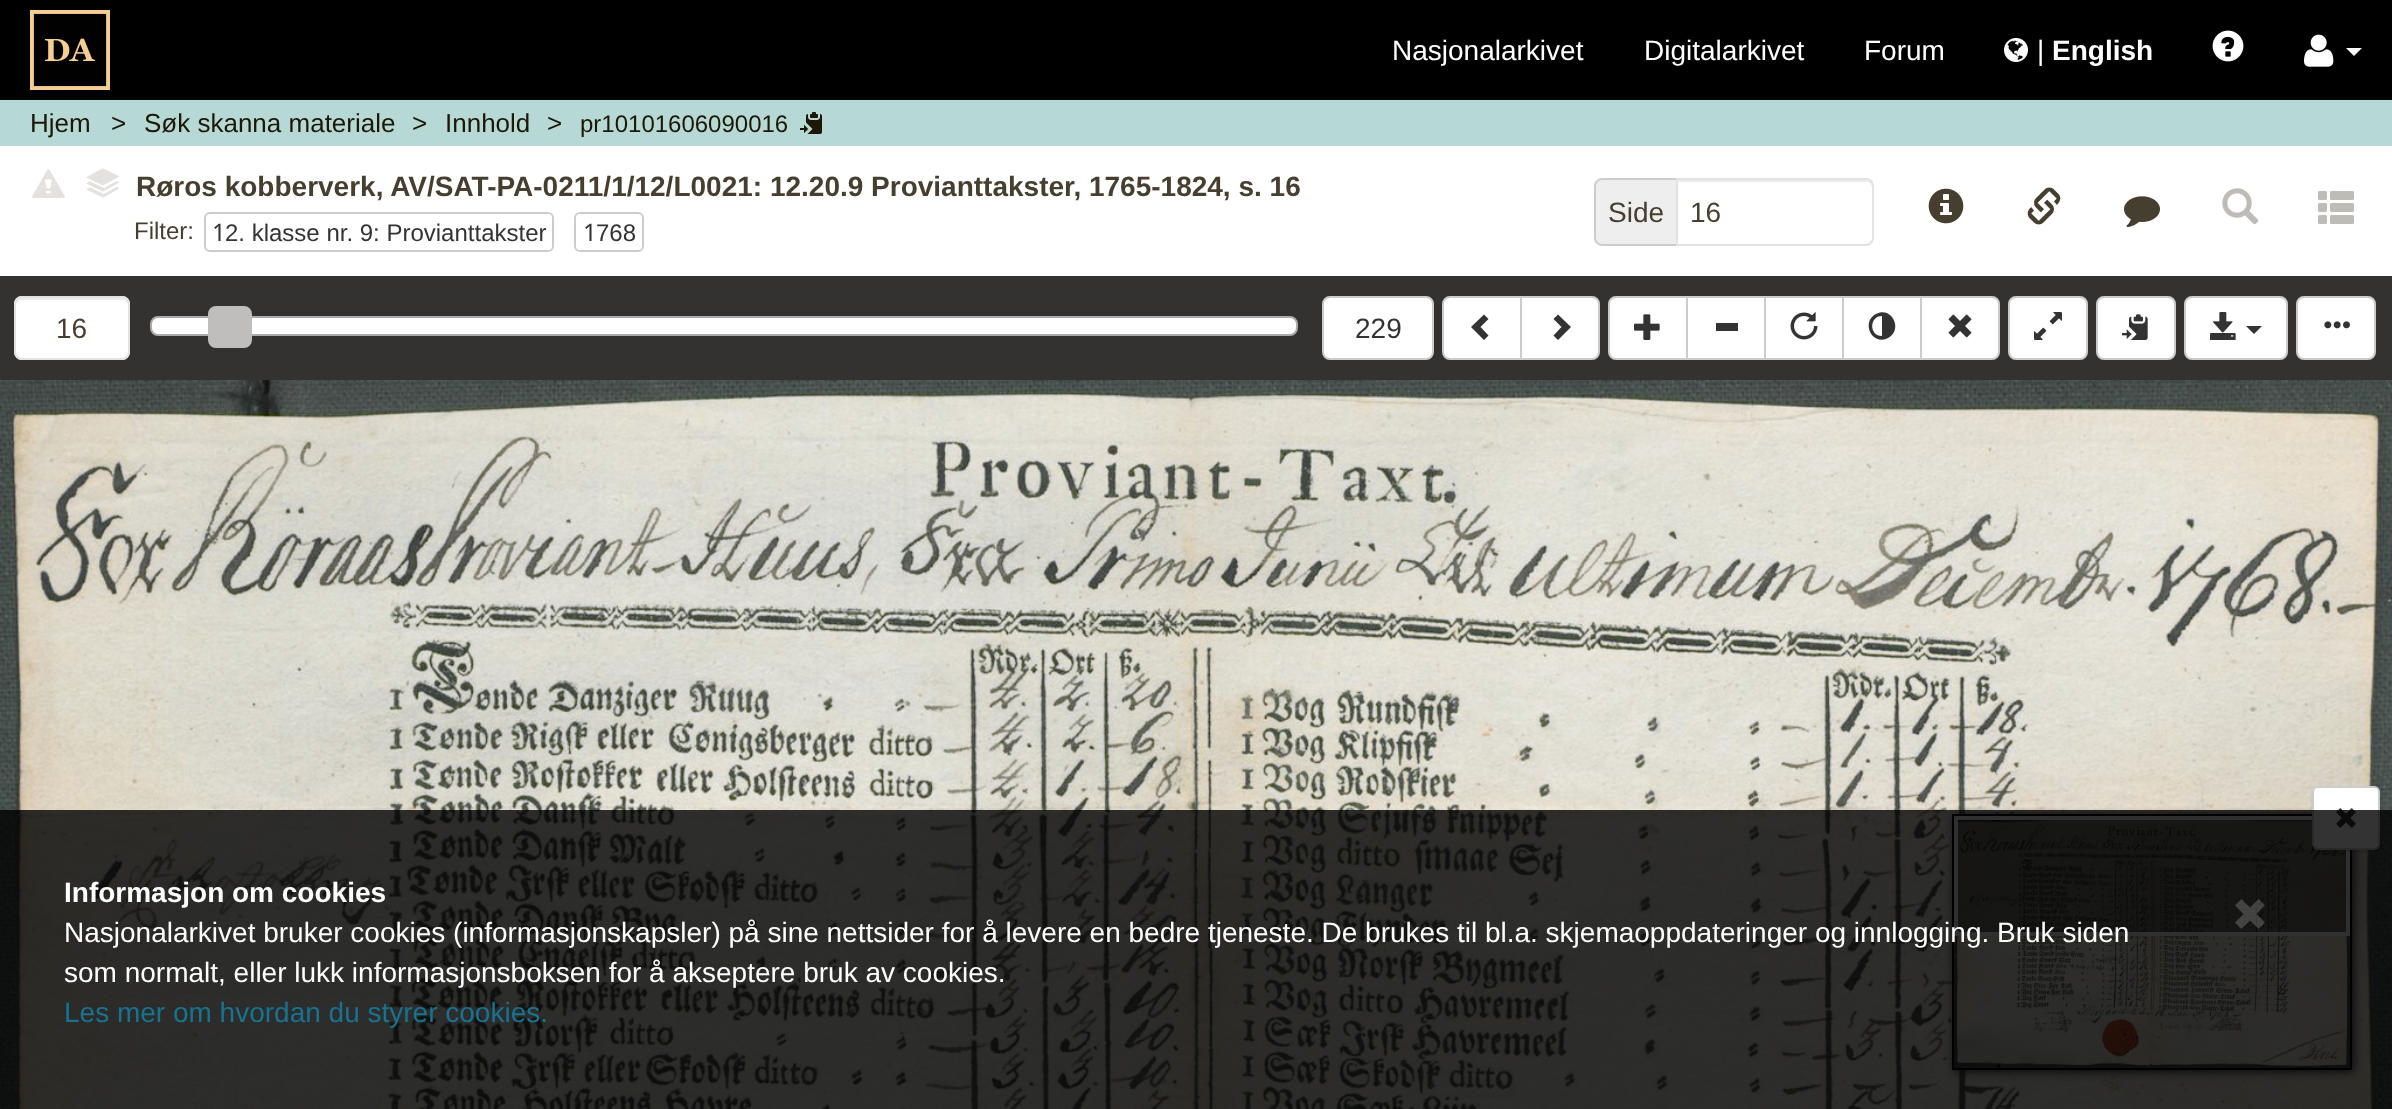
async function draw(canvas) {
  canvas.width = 2392;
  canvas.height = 1109;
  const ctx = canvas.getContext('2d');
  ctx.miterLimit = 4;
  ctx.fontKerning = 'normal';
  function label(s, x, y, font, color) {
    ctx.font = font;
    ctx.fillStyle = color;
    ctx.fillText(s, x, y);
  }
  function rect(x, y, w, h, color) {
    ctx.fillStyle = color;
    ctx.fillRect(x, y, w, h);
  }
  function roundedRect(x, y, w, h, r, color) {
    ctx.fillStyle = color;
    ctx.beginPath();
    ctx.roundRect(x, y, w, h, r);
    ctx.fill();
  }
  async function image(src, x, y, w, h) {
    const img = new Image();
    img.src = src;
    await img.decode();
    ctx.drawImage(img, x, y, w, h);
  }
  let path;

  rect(0, 0, 2392, 1109, '#b6d9d6');
  rect(0, 0, 2392, 100, '#000');
  await image('assets/img1.png', 30, 10, 80, 80);
  label('Nasjonalarkivet', 1392, 60, '28px Liberation Sans', '#fff');
  label('Digitalarkivet', 1644, 60, '28px Liberation Sans', '#fff');
  label('Forum', 1864, 60, '28px Liberation Sans', '#fff');
  await image('assets/img2.png', 2004, 38, 24, 24);
  label('|', 2037, 60, '28px Liberation Sans', '#fff');
  label('English', 2052, 60, 'bold 28px Liberation Sans', '#fff');
  await image('assets/img3.png', 2212, 30, 32, 32);
  await image('assets/img4.png', 2304, 34, 30, 33);
  path = new Path2D('M2346 48H2362L2354 56Z');
  ctx.fill(path);
  label('Hjem', 30, 132, '26px Liberation Sans', '#1d1705');
  label('>', 111, 132, '26px Liberation Sans', '#1d1705');
  label('Søk skanna materiale', 144, 132, '26px Liberation Sans', '#1d1705');
  label('>', 412, 132, '26px Liberation Sans', '#1d1705');
  label('Innhold', 445, 132, '26px Liberation Sans', '#1d1705');
  label('>', 547, 132, '26px Liberation Sans', '#1d1705');
  label('pr10101606090016', 580, 132, '24px Liberation Sans', '#1d1705');
  await image('assets/img5.png', 800, 112, 22, 22);
  rect(0, 146, 2392, 130, '#fff');
  await image('assets/img6.png', 32, 169, 33, 29);
  await image('assets/img11.png', 86, 186, 33, 12);
  await image('assets/img10.png', 90, 183, 27, 11);
  await image('assets/img9.png', 86, 180, 33, 12);
  await image('assets/img8.png', 90, 177, 27, 11);
  await image('assets/img7.png', 86, 168, 33, 18);
  label('Røros kobberverk, AV/SAT-PA-0211/1/12/L0021: 12.20.9 Provianttakster, 1765-1824, s. 16', 136, 196, 'bold 28px Liberation Sans', '#463e2f');
  label('Filter:', 134, 239, '24px Liberation Sans', '#463e2f');
  ctx.beginPath();
  ctx.roundRect(205, 213, 348, 38, 5);
  ctx.strokeStyle = '#ccc';
  ctx.lineWidth = 2;
  ctx.stroke();
  label('1', 212, 241, '24px Noto Sans', '#333');
  label('2. klasse nr. 9: Provianttakster', 225, 241, '24px Liberation Sans', '#333');
  ctx.beginPath();
  ctx.roundRect(575, 213, 68, 38, 5);
  ctx.stroke();
  label('1', 583, 241, '24px Noto Sans', '#333');
  label('768', 596, 241, '24px Liberation Sans', '#333');
  ctx.fillStyle = '#eee';
  ctx.beginPath();
  ctx.roundRect(1594, 178, 82, 68, [8, 0, 0, 8]);
  ctx.fill();
  ctx.fillStyle = '#ccc';
  path = new Path2D('M1602 178H1676V246H1602C1598 246 1594 242 1594 238V186C1594 182 1598 178 1602 178ZM1602 180H1676V244H1602C1599 244 1596 241 1596 238V186C1596 183 1599 180 1602 180Z');
  ctx.fill(path, 'evenodd');
  label('Side', 1608, 222, '28px Liberation Sans', '#463e2f');
  ctx.fillStyle = '#ececec';
  path = new Path2D('M1678 182H1866C1869 182 1872 185 1872 188V186C1872 183 1869 180 1866 180H1678Z');
  ctx.fill(path);
  ctx.beginPath();
  ctx.roundRect(1677, 179, 196, 66, [0, 7, 7, 0]);
  ctx.strokeStyle = '#e3e2e0';
  ctx.stroke();
  label('16', 1690, 222, '28px Liberation Sans', '#463e2f');
  await image('assets/img12.png', 1928, 188, 36, 36);
  await image('assets/img13.png', 2027, 187, 34, 38);
  await image('assets/img14.png', 2124, 196, 36, 32);
  await image('assets/img15.png', 2222, 188, 37, 37);
  await image('assets/img16.png', 2318, 191, 36, 33);
  rect(0, 276, 2392, 104, '#333231');
  roundedRect(14, 296, 116, 64, 8, '#fff');
  ctx.fillStyle = '#ececec';
  path = new Path2D('M22 300H122C125 300 128 303 128 306C128 294 115 298 105 298H39C29 298 16 294 16 306C16 303 19 300 22 300Z');
  ctx.fill(path);
  ctx.beginPath();
  ctx.roundRect(15, 297, 114, 62, 7);
  ctx.stroke();
  label('16', 56, 338, '28px Liberation Sans', '#463e2f');
  ctx.fillStyle = '#fff';
  ctx.beginPath();
  ctx.roundRect(151, 317, 1146, 18, 7);
  ctx.fill();
  ctx.strokeStyle = '#aaa';
  ctx.stroke();
  ctx.fillStyle = '#bfbebd';
  ctx.beginPath();
  ctx.roundRect(209, 307, 42, 40, 7);
  ctx.fill();
  ctx.strokeStyle = '#bfbebd';
  ctx.stroke();
  ctx.fillStyle = '#fff';
  ctx.beginPath();
  ctx.roundRect(1323, 297, 110, 62, 7);
  ctx.fill();
  ctx.strokeStyle = '#ccc';
  ctx.stroke();
  label('229', 1355, 338, '28px Liberation Sans', '#333');
  ctx.fillStyle = '#fff';
  ctx.beginPath();
  ctx.roundRect(1443, 297, 78, 62, [7, 0, 0, 7]);
  ctx.fill();
  ctx.stroke();
  ctx.fillStyle = '#333';
  path = new Path2D('M1488.5 319L1480.5 327L1488.5 335.5L1484 340L1471 327L1484 314.5Z');
  ctx.fill(path);
  ctx.fillStyle = '#fff';
  ctx.beginPath();
  ctx.roundRect(1521, 297, 78, 62, [0, 7, 7, 0]);
  ctx.fill();
  ctx.stroke();
  ctx.fillStyle = '#333';
  path = new Path2D('M1571 327L1558 340L1553.5 335.5L1561.5 327L1553.5 319L1558 314.5Z');
  ctx.fill(path);
  ctx.fillStyle = '#fff';
  ctx.beginPath();
  ctx.roundRect(1609, 297, 78, 62, [7, 0, 0, 7]);
  ctx.fill();
  ctx.stroke();
  await image('assets/img17.png', 1634, 314, 26, 26);
  ctx.beginPath();
  ctx.rect(1687, 297, 78, 62);
  ctx.fill();
  ctx.stroke();
  rect(1716, 323, 22, 8, '#333');
  ctx.fillStyle = '#fff';
  ctx.beginPath();
  ctx.rect(1765, 297, 78, 62);
  ctx.fill();
  ctx.stroke();
  await image('assets/img18.png', 1790, 312, 28, 28);
  ctx.beginPath();
  ctx.rect(1843, 297, 78, 62);
  ctx.fill();
  ctx.stroke();
  ctx.fillStyle = '#333';
  path = new Path2D('M1877 313.5C1893 306.5 1903.5 331.5 1887 338.5C1871 345.5 1860.5 320.5 1877 313.5ZM1882 336V316C1869 316 1869 336 1882 336Z');
  ctx.fill(path);
  ctx.fillStyle = '#fff';
  ctx.beginPath();
  ctx.roundRect(1921, 297, 78, 62, [0, 7, 7, 0]);
  ctx.fill();
  ctx.stroke();
  await image('assets/img19.png', 1948, 314, 24, 24);
  ctx.beginPath();
  ctx.roundRect(2009, 297, 78, 62, 7);
  ctx.fill();
  ctx.stroke();
  await image('assets/img20.png', 2034, 312, 28, 28);
  ctx.beginPath();
  ctx.roundRect(2097, 297, 78, 62, 7);
  ctx.fill();
  ctx.stroke();
  await image('assets/img21.png', 2122, 314, 26, 26);
  ctx.beginPath();
  ctx.roundRect(2185, 297, 102, 62, 7);
  ctx.fill();
  ctx.stroke();
  await image('assets/img22.png', 2210, 312, 26, 28);
  ctx.fillStyle = '#333';
  path = new Path2D('M2246 326H2262L2254 334Z');
  ctx.fill(path);
  ctx.fillStyle = '#fff';
  ctx.beginPath();
  ctx.roundRect(2297, 297, 78, 62, 7);
  ctx.fill();
  ctx.stroke();
  await image('assets/img23.png', 2324, 321, 26, 8);
  await image('assets/img24.png', 0, 380, 2392, 729);
  ctx.fillStyle = '#323232';
  ctx.filter = 'blur(5px)';
  ctx.beginPath();
  ctx.rect(1954, 816, 400, 256);
  ctx.fill();
  ctx.filter = 'none';
  ctx.strokeStyle = '#000';
  ctx.strokeRect(1953, 815, 398, 254);
  await image('assets/img26.png', 1954, 816, 396, 252);
  rect(1954, 816, 396, 120, '#00000080');
  ctx.strokeStyle = '#ffffffe6';
  ctx.lineWidth = 4;
  ctx.strokeRect(1956, 818, 392, 116);
  ctx.fillStyle = '#0000001a';
  ctx.filter = 'blur(1px)';
  ctx.beginPath();
  ctx.roundRect(2312, 788, 68, 64, 6);
  ctx.fill();
  ctx.filter = 'none';
  ctx.fillStyle = '#fff';
  ctx.beginPath();
  ctx.roundRect(2313, 787, 66, 62, 5);
  ctx.fill();
  ctx.strokeStyle = '#ccc';
  ctx.lineWidth = 2;
  ctx.stroke();
  await image('assets/img25.png', 2336, 808, 20, 20);
  rect(0, 810, 2392, 299, '#000000cc');
  label('Informasjon om cookies', 64, 902, 'bold 28px Liberation Sans', '#fff');
  await image('assets/img27.png', 2235, 899, 30, 30);
  label('Nasjonalarkivet bruker cookies (informasjonskapsler) på sine nettsider for å levere en bedre tjeneste. De brukes til bl.a. skjemaoppdateringer og innlogging. Bruk siden', 64, 942, '28px Liberation Sans', '#fff');
  label('som normalt, eller lukk informasjonsboksen for å akseptere bruk av cookies.', 64, 982, '28px Liberation Sans', '#fff');
  label('Les mer om hvordan du styrer cookies.', 64, 1022, '28px Liberation Sans', '#177391');
}

draw(document.querySelector('canvas'));
